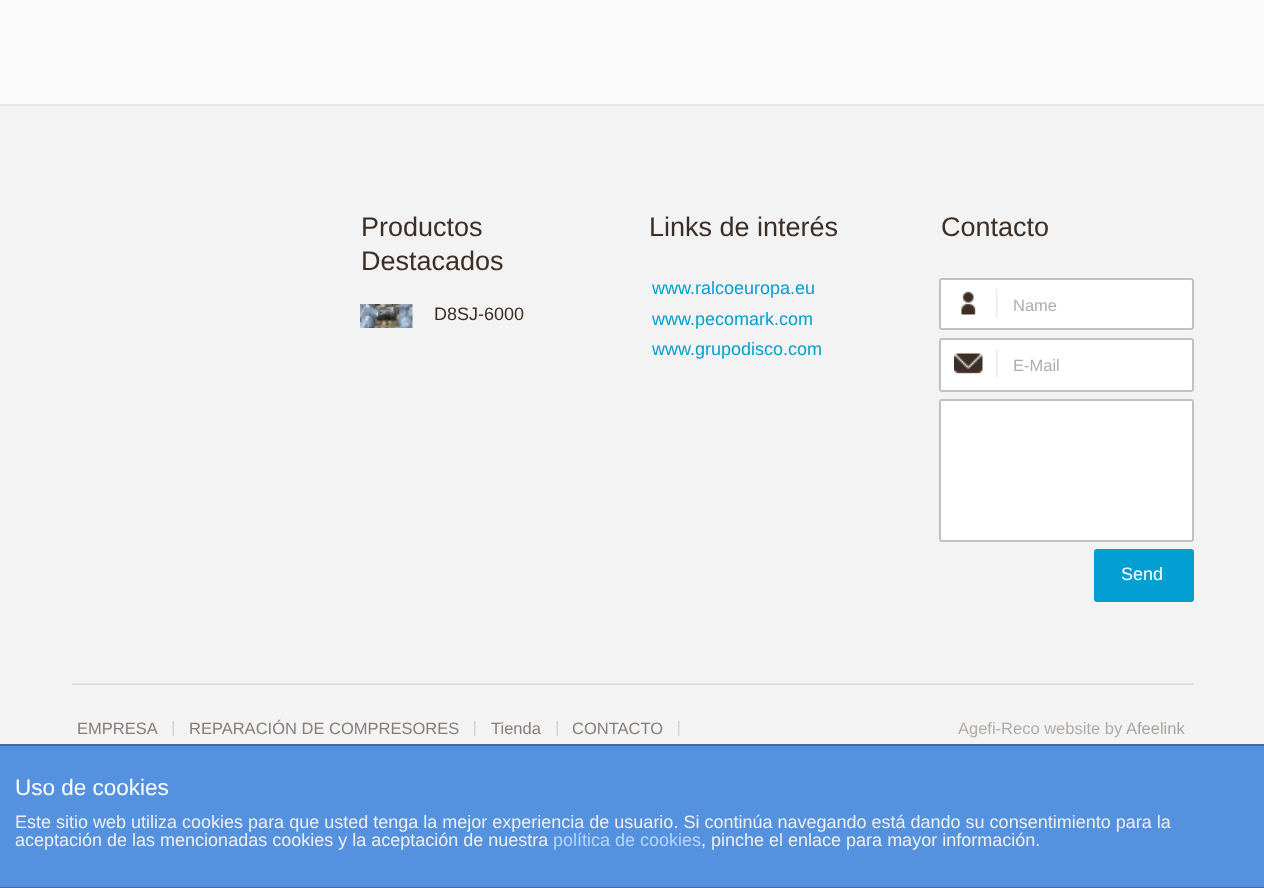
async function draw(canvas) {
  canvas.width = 1264;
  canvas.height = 888;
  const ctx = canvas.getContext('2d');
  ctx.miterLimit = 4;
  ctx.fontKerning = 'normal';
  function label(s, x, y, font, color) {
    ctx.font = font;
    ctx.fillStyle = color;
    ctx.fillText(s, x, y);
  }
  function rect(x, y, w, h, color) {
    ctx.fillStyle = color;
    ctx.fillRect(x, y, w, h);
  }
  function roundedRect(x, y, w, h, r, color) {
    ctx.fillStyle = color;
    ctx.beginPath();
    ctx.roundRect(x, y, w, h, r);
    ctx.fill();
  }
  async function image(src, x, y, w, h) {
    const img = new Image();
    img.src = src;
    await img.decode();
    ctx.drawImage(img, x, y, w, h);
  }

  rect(0, 0, 1264, 888, '#fafafa');
  rect(0, 106, 1264, 638, '#f3f3f3');
  rect(0, 104, 1264, 2, '#e9e8e8');
  label('Productos', 361, 236, '27px Liberation Sans', '#3c2e25');
  label('Destacados', 361, 270, '27px Liberation Sans', '#3c2e25');
  await image('assets/img1.png', 360, 304, 53, 24);
  label('D8SJ-6000', 434, 320, '18px Liberation Sans', '#3c2e25');
  label('Links de interés', 649, 236, '27px Liberation Sans', '#3c2e25');
  label('www.ralcoeuropa.eu', 652, 294, '18px Liberation Sans', '#039fd3');
  label('www.pecomark.com', 652, 325, '18px Liberation Sans', '#039fd3');
  label('www.grupodisco.com', 652, 355, '18px Liberation Sans', '#039fd3');
  label('Contacto', 941, 236, '27px Liberation Sans', '#3c2e25');
  roundedRect(939, 278, 255, 52, 3, '#fff');
  await image('assets/img2.png', 961, 289, 37, 29);
  ctx.beginPath();
  ctx.roundRect(940, 279, 253, 50, 2);
  ctx.strokeStyle = '#c1c1c1';
  ctx.lineWidth = 2;
  ctx.stroke();
  label('Name', 1013, 311, '16.5px Liberation Sans', '#b2aca8');
  roundedRect(939, 338, 255, 54, 3, '#fff');
  await image('assets/img3.png', 954, 349, 44, 29);
  ctx.beginPath();
  ctx.roundRect(940, 339, 253, 52, 2);
  ctx.stroke();
  label('E-Mail', 1013, 371, '16.5px Liberation Sans', '#b2aca8');
  ctx.fillStyle = '#fff';
  ctx.beginPath();
  ctx.roundRect(940, 400, 253, 141, 2);
  ctx.fill();
  ctx.stroke();
  roundedRect(1094, 549, 100, 53, 3, '#039fd3');
  label('Send', 1121, 580, '18px Liberation Sans', '#fff');
  await image('assets/img4.png', 72, 683, 1122, 2);
  await image('assets/img5.png', 172, 721, 2, 15);
  label('EMPRESA', 77, 734, '16.5px Liberation Sans', '#867d78');
  await image('assets/img6.png', 474, 721, 2, 15);
  label('REPARACIÓN DE COMPRESORES', 189, 734, '16.5px Liberation Sans', '#867d78');
  await image('assets/img5.png', 556, 721, 2, 15);
  label('Tienda', 491, 734, '16.5px Liberation Sans', '#867d78');
  await image('assets/img6.png', 678, 721, 2, 15);
  label('CONTACTO', 572, 734, '16.5px Liberation Sans', '#867d78');
  label('Agefi-Reco website by', 958, 734, '16.5px Liberation Sans', '#b2aca8');
  label('Afeelink', 1126, 734, '16.5px Liberation Sans', '#aaa4a1');
  rect(0, 746, 1264, 141, '#5492e0');
  rect(0, 744, 1264, 2, '#3f6da7');
  rect(0, 887, 1264, 1, '#3f6da7');
  label('Uso de cookies', 15, 795, '22.5px Liberation Sans', '#fff');
  label('Este sitio web utiliza cookies para que usted tenga la mejor experiencia de usuario. Si continúa navegando está dando su consentimiento para la', 15, 828, '18px Liberation Sans', '#eee');
  label('aceptación de las mencionadas cookies y la aceptación de nuestra', 15, 846, '18px Liberation Sans', '#eee');
  label('política de cookies', 553, 846, '18px Liberation Sans', '#b7d7ff');
  label(', pinche el enlace para mayor información.', 701, 846, '18px Liberation Sans', '#eee');
}

draw(document.querySelector('canvas'));
